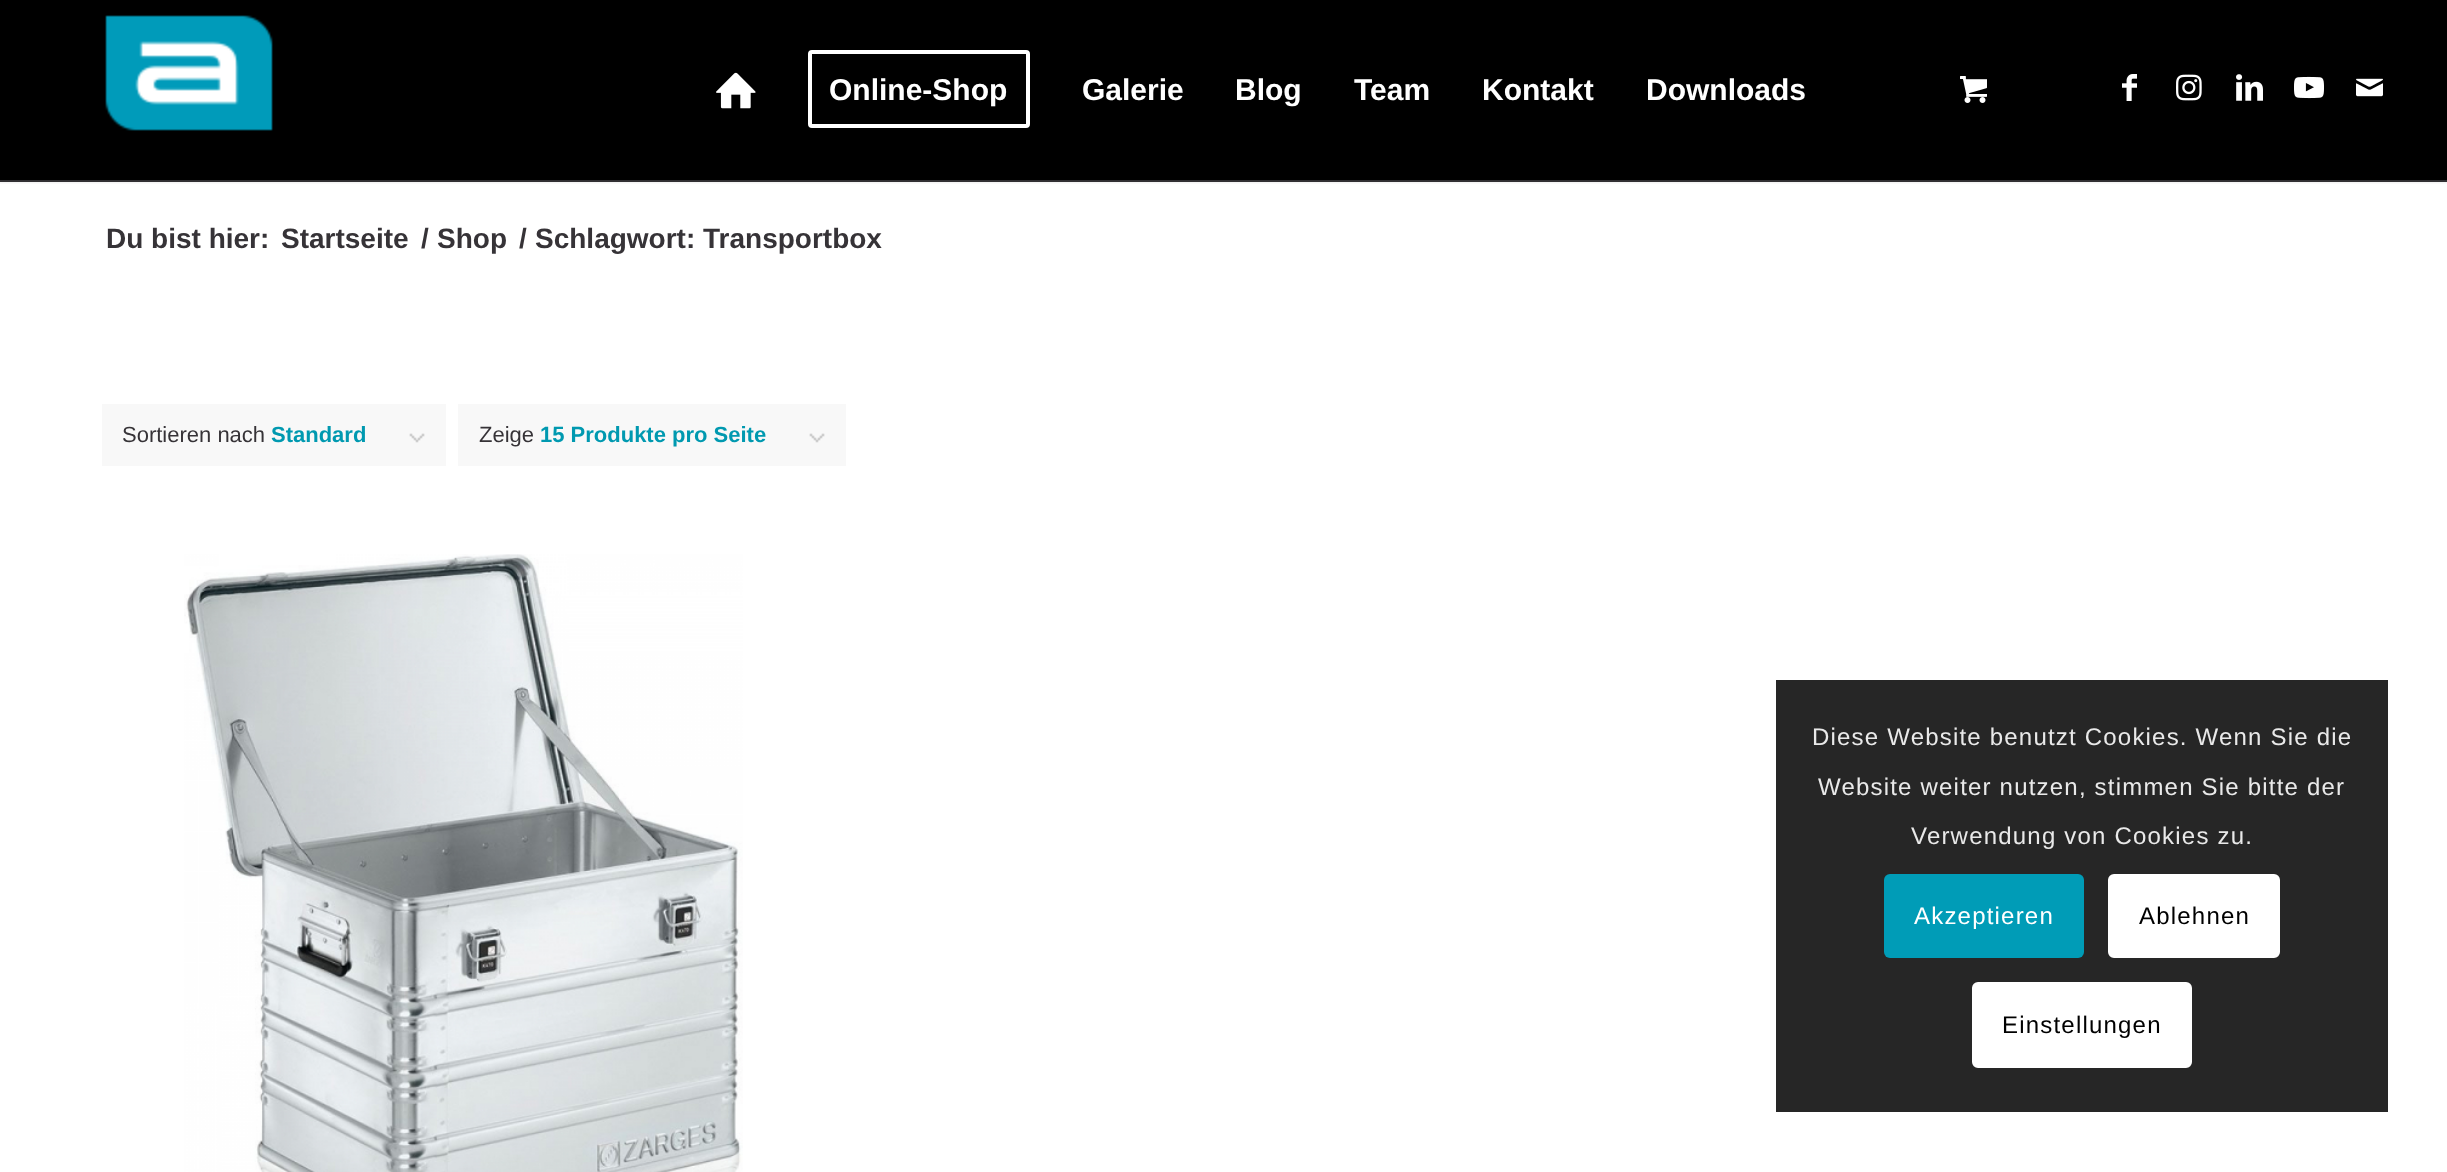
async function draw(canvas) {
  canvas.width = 2447;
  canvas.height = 1172;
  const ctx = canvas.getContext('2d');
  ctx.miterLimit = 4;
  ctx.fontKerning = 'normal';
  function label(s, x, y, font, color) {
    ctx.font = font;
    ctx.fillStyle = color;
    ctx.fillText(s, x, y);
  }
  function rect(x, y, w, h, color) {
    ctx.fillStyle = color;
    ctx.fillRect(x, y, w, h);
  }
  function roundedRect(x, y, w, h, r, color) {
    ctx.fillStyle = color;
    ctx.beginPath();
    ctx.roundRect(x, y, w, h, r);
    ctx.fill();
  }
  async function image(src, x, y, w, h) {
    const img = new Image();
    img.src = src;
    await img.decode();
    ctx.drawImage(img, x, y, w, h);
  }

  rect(0, 0, 2447, 1172, '#000');
  rect(0, 182, 2447, 990, '#fff');
  rect(0, 180, 2447, 2, '#363337');
  ctx.save();
  ctx.beginPath();
  ctx.rect(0, 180, 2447, 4);
  ctx.clip();
  ctx.fillStyle = '#0000001a';
  ctx.filter = 'blur(2px)';
  ctx.beginPath();
  ctx.rect(-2, -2, 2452, 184);
  ctx.fill();
  ctx.filter = 'none';
  ctx.restore();
  await image('assets/img1.png', 105, 15, 168, 116);
  await image('assets/img2.png', 716, 72, 40, 37);
  ctx.beginPath();
  ctx.roundRect(810, 52, 218, 74, 2);
  ctx.strokeStyle = '#fff';
  ctx.lineWidth = 4;
  ctx.stroke();
  label('Online-Shop', 829, 100, 'bold 30px Liberation Sans', '#fff');
  label('Galerie', 1082, 100, 'bold 30px Liberation Sans', '#fff');
  label('Blog', 1235, 100, 'bold 30px Liberation Sans', '#fff');
  label('Team', 1354, 100, 'bold 30px Liberation Sans', '#fff');
  label('Kontakt', 1482, 100, 'bold 30px Liberation Sans', '#fff');
  label('Downloads', 1646, 100, 'bold 30px Liberation Sans', '#fff');
  await image('assets/img3.png', 1960, 76, 27, 27);
  await image('assets/img4.png', 2122, 74, 15, 27);
  await image('assets/img5.png', 2176, 74, 26, 27);
  await image('assets/img6.png', 2236, 74, 27, 27);
  await image('assets/img7.png', 2294, 76, 30, 23);
  await image('assets/img8.png', 2356, 78, 27, 19);
  label('Du bist hier:', 106, 248, 'bold 28px Liberation Sans', '#363337');
  label('Startseite', 281, 248, 'bold 28px Liberation Sans', '#363337');
  label('/', 421, 248, 'bold 28px Liberation Sans', '#363337');
  label('Shop', 437, 248, 'bold 28px Liberation Sans', '#363337');
  label('/', 519, 248, 'bold 28px Liberation Sans', '#363337');
  label('Schlagwort: Transportbox', 535, 248, 'bold 28px Liberation Sans', '#363337');
  rect(102, 404, 344, 62, '#f8f8f8');
  await image('assets/img9.png', 409, 433, 16, 10);
  label('Sortieren nach', 122, 442, '22px Liberation Sans', '#363337');
  label('Standard', 271, 442, 'bold 22px Liberation Sans', '#0099b0');
  rect(458, 404, 388, 62, '#f8f8f8');
  await image('assets/img9.png', 809, 433, 16, 10);
  label('Zeige', 479, 442, '22px Liberation Sans', '#363337');
  label('15 Produkte pro Seite', 540, 442, 'bold 22px Liberation Sans', '#0099b0');
  await image('assets/img10.png', 184, 554, 559, 618);
  rect(1776, 680, 612, 432, '#262626');
  ctx.letterSpacing = '1.2px';
  label('Diese Website benutzt Cookies. Wenn Sie die', 1812, 745, '24px Liberation Sans', '#e9e9e9');
  label('Website weiter nutzen, stimmen Sie bitte der', 1818, 795, '24px Liberation Sans', '#e9e9e9');
  label('Verwendung von Cookies zu.', 1911, 844, '24px Liberation Sans', '#e9e9e9');
  roundedRect(1884, 874, 200, 84, 6, '#009cb7');
  label('Akzeptieren', 1914, 924, '24px Liberation Sans', '#fff');
  ctx.beginPath();
  ctx.roundRect(2110, 876, 168, 80, 4);
  ctx.fill();
  ctx.stroke();
  label('Ablehnen', 2139, 924, '24px Liberation Sans', '#000');
  ctx.fillStyle = '#fff';
  ctx.beginPath();
  ctx.roundRect(1974, 984, 216, 82, 4);
  ctx.fill();
  ctx.stroke();
  label('Einstellungen', 2002, 1033, '24px Liberation Sans', '#000');
}

draw(document.querySelector('canvas'));
